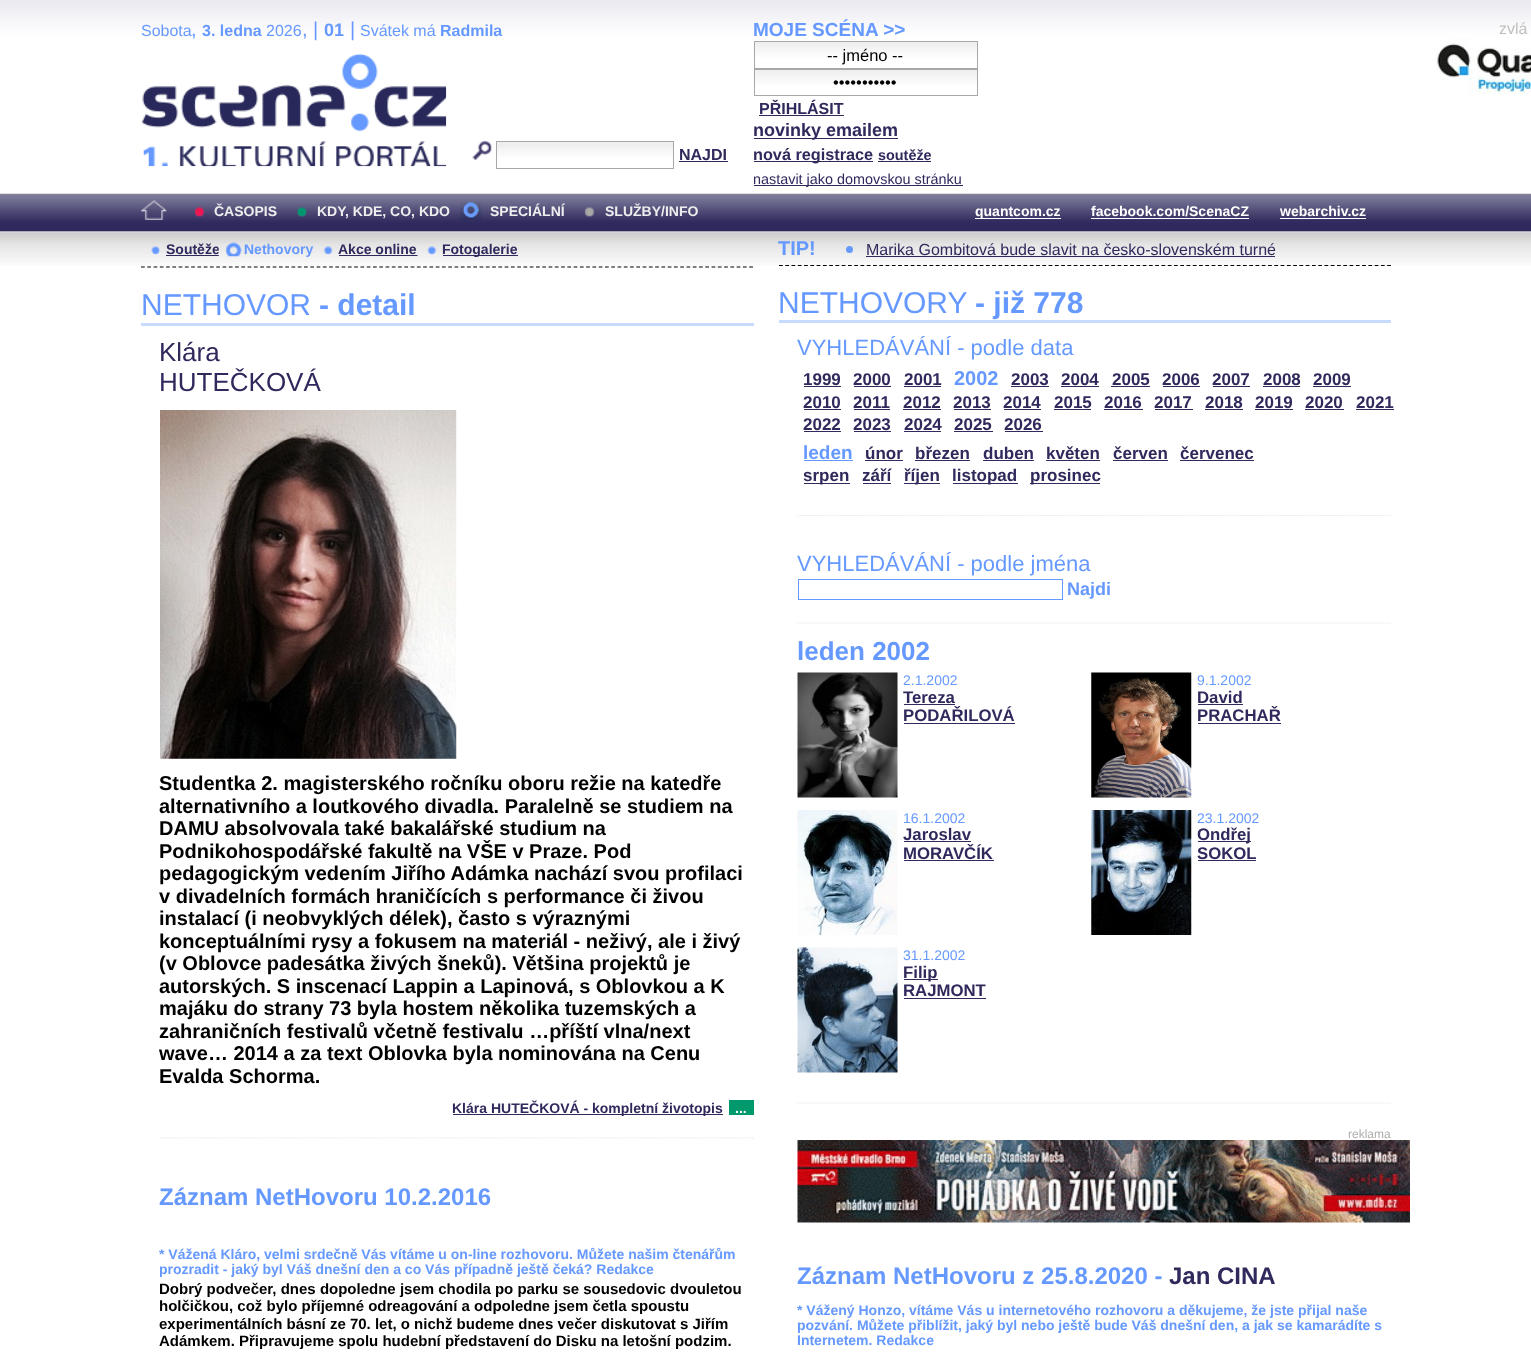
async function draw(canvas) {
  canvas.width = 1531;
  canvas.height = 1359;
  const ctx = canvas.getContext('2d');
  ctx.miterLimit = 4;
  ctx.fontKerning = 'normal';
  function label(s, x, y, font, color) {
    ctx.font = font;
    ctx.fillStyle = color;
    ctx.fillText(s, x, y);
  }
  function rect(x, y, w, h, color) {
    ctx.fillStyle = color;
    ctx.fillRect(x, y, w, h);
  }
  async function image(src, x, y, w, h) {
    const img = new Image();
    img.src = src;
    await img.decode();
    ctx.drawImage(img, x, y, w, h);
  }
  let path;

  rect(0, 0, 1531, 1359, '#fff');
  await image('assets/img1.png', 0, 0, 1531, 266);
  label('Sobota', 141, 36, '16px Liberation Sans', '#69f');
  label(',', 191, 36, '20px Liberation Sans', '#69f');
  label('3. ledna', 202, 36, 'bold 16px Liberation Sans', '#69f');
  label('2026', 266, 36, '16px Liberation Sans', '#69f');
  label(', |', 302, 36, '20px Liberation Sans', '#69f');
  label('01', 324, 36, 'bold 18px Liberation Sans', '#69f');
  label('|', 350, 36, '20px Liberation Sans', '#69f');
  label('Svátek má', 360, 36, '16px Liberation Sans', '#69f');
  label('Radmila', 440, 36, 'bold 16px Liberation Sans', '#69f');
  await image('assets/img2.png', 141, 53, 306, 114);
  await image('assets/img3.png', 472, 140, 20, 20);
  rect(497, 142, 176, 5, '#efefee');
  await image('assets/img4.png', 497, 147, 176, 21);
  ctx.strokeStyle = '#a9a8a8';
  ctx.strokeRect(496.5, 141.5, 177, 27);
  label('NAJDI', 679, 160, 'bold 16px Liberation Sans', '#2f295c');
  rect(679, 161, 49, 1, '#2f295c');
  label('MOJE SCÉNA >>', 753, 36, 'bold 19px Liberation Sans', '#69f');
  rect(755, 42, 222, 1, '#efefee');
  await image('assets/img5.png', 753, 43, 224, 26);
  ctx.strokeRect(754.5, 41.5, 223, 27);
  label('-- jméno --', 827, 61, '16.5px Liberation Sans', '#000');
  await image('assets/img6.png', 753, 70, 224, 26);
  ctx.strokeRect(754.5, 69.5, 223, 26);
  label('•••••••••••', 833, 88, '16.5px Liberation Sans', '#000');
  label('PŘIHLÁSIT', 759, 114, 'bold 16px Liberation Sans', '#2f295c');
  rect(759, 115, 85, 1, '#2f295c');
  rect(754, 138, 144, 1, '#2f295c');
  label('novinky emailem', 753, 136, 'bold 18px Liberation Sans', '#2f295c');
  rect(754, 161, 119, 1, '#2f295c');
  label('nová registrace', 753, 160, 'bold 16.25px Liberation Sans', '#2f295c');
  label('soutěže', 878, 160, 'bold 14.4px Liberation Sans', '#2f295c');
  rect(878, 161, 53, 1, '#2f295c');
  rect(754, 185, 209, 1, '#2f295c');
  label('nastavit jako domovskou stránku', 753, 184, '14.4px Liberation Sans', '#2f295c');
  label('zvlá', 1499, 34, '16px Liberation Sans', '#c0c0c0');
  await image('assets/img7.png', 1435, 39, 96, 55);
  await image('assets/img8.png', 141, 200, 26, 20);
  await image('assets/img9.png', 194, 207, 10, 10);
  label('ČASOPIS', 214, 216, 'bold 14px Liberation Sans', '#eee');
  await image('assets/img10.png', 297, 207, 10, 10);
  label('KDY, KDE, CO, KDO', 317, 216, 'bold 14px Liberation Sans', '#eee');
  await image('assets/img11.png', 460, 202, 23, 18);
  label('SPECIÁLNÍ', 490, 216, 'bold 14px Liberation Sans', '#eee');
  await image('assets/img12.png', 584, 207, 10, 10);
  label('SLUŽBY/INFO', 605, 216, 'bold 14px Liberation Sans', '#eee');
  rect(975, 218, 86, 1, '#fff');
  label('quantcom.cz', 975, 216, 'bold 14px Liberation Sans', '#fff');
  label('facebook.com/ScenaCZ', 1091, 216, 'bold 14px Liberation Sans', '#fff');
  rect(1091, 218, 158, 1, '#fff');
  label('webarchiv.cz', 1280, 216, 'bold 14px Liberation Sans', '#fff');
  rect(1280, 218, 86, 1, '#fff');
  path = new Path2D('M141 267H754');
  ctx.strokeStyle = '#000';
  ctx.lineWidth = 1.2;
  ctx.setLineDash([3.75, 2.52]);
  ctx.stroke(path);
  await image('assets/img13.png', 151, 246, 10, 9);
  label('Soutěže', 166, 254, 'bold 14px Liberation Sans', '#2f295c');
  rect(166, 255, 53, 1, '#2f295c');
  await image('assets/img14.png', 218, 242, 27, 15);
  label('Nethovory', 244, 254, 'bold 14px Liberation Sans', '#69f');
  await image('assets/img15.png', 313, 246, 20, 9);
  label('Akce online', 338, 254, 'bold 14px Liberation Sans', '#2f295c');
  rect(339, 255, 79, 1, '#2f295c');
  await image('assets/img16.png', 417, 246, 20, 10);
  rect(443, 255, 75, 1, '#2f295c');
  label('Fotogalerie', 442, 254, 'bold 14px Liberation Sans', '#2f295c');
  rect(141, 323, 613, 3, '#c7daff');
  label('NETHOVOR', 141, 315, '30px Liberation Sans', '#69f');
  label('- detail', 319, 315, 'bold 30px Liberation Sans', '#69f');
  label('Klára', 159, 361, '26px Liberation Sans', '#2f295c');
  label('HUTEČKOVÁ', 159, 391, '26px Liberation Sans', '#2f295c');
  await image('assets/img17.png', 160, 410, 297, 349);
  label('Studentka 2. magisterského ročníku oboru režie na katedře', 159, 790, 'bold 20px Liberation Sans', '#000');
  label('alternativního a loutkového divadla. Paralelně se studiem na', 159, 813, 'bold 20px Liberation Sans', '#000');
  label('DAMU absolvovala také bakalářské studium na', 159, 835, 'bold 20px Liberation Sans', '#000');
  label('Podnikohospodářské fakultě na VŠE v Praze. Pod', 159, 858, 'bold 20px Liberation Sans', '#000');
  label('pedagogickým vedením Jiřího Adámka nachází svou profilaci', 159, 880, 'bold 20px Liberation Sans', '#000');
  label('v divadelních formách hraničících s performance či živou', 159, 903, 'bold 20px Liberation Sans', '#000');
  label('instalací (i neobvyklých délek), často s výraznými', 159, 925, 'bold 20px Liberation Sans', '#000');
  label('konceptuálními rysy a fokusem na materiál - neživý, ale i živý', 159, 948, 'bold 20px Liberation Sans', '#000');
  label('(v Oblovce padesátka živých šneků). Většina projektů je', 159, 970, 'bold 20px Liberation Sans', '#000');
  label('autorských. S inscenací Lappin a Lapinová, s Oblovkou a K', 159, 993, 'bold 20px Liberation Sans', '#000');
  label('majáku do strany 73 byla hostem několika tuzemských a', 159, 1015, 'bold 20px Liberation Sans', '#000');
  label('zahraničních festivalů včetně festivalu …příští vlna/next', 159, 1038, 'bold 20px Liberation Sans', '#000');
  label('wave… 2014 a za text Oblovka byla nominována na Cenu', 159, 1060, 'bold 20px Liberation Sans', '#000');
  label('Evalda Schorma.', 159, 1083, 'bold 20px Liberation Sans', '#000');
  rect(453, 1114, 270, 1, '#2f295c');
  label('Klára HUTEČKOVÁ - kompletní životopis', 452, 1113, 'bold 14px Liberation Sans', '#2f295c');
  rect(729, 1100, 25, 15, '#00996e');
  label('...', 735, 1113, 'bold 14px Liberation Sans', '#fff');
  path = new Path2D('M160 1138H754');
  ctx.strokeStyle = '#e3e3ed';
  ctx.setLineDash([1.25, 1.25]);
  ctx.stroke(path);
  label('Záznam NetHovoru 10.2.2016', 159, 1205, 'bold 24px Liberation Sans', '#69f');
  label('* Vážená Kláro, velmi srdečně Vás vítáme u on-line rozhovoru. Můžete našim čtenářům', 159, 1259, 'bold 14px Liberation Sans', '#69f');
  label('prozradit - jaký byl Váš dnešní den a co Vás případně ještě čeká? Redakce', 159, 1274, 'bold 14px Liberation Sans', '#69f');
  label('Dobrý podvečer, dnes dopoledne jsem chodila po parku se sousedovic dvouletou', 159, 1294, 'bold 15px Liberation Sans', '#000');
  label('holčičkou, což bylo příjemné odreagování a odpoledne jsem četla spoustu', 159, 1311, 'bold 15px Liberation Sans', '#000');
  label('experimentálních básní ze 70. let, o nichž budeme dnes večer diskutovat s Jiřím', 159, 1329, 'bold 15px Liberation Sans', '#000');
  label('Adámkem. Připravujeme spolu hudební představení do Disku na letošní podzim.', 159, 1346, 'bold 15px Liberation Sans', '#000');
  path = new Path2D('M779 265.5H1391');
  ctx.strokeStyle = '#000';
  ctx.setLineDash([3.75, 2.52]);
  ctx.stroke(path);
  label('TIP!', 778, 255, 'bold 20px Liberation Sans', '#69f');
  ctx.beginPath();
  ctx.arc(849.5, 249.5, 3.5, 0, 2 * Math.PI);
  ctx.fill();
  label('Marika Gombitová bude slavit na česko-slovenském turné', 866, 255, '16px Liberation Sans', '#2f295c');
  rect(866, 256, 409, 1, '#2f295c');
  rect(779, 320, 612, 3, '#c7daff');
  label('NETHOVORY', 778, 313, '30px Liberation Sans', '#69f');
  label('- již 778', 975, 313, 'bold 30px Liberation Sans', '#69f');
  label('VYHLEDÁVÁNÍ - podle data', 797, 355, '22px Liberation Sans', '#69f');
  label('1999', 803, 385, 'bold 17px Liberation Sans', '#2f295c');
  rect(804, 386, 37, 1, '#2f295c');
  label('2000', 853, 385, 'bold 17px Liberation Sans', '#2f295c');
  rect(854, 386, 37, 1, '#2f295c');
  label('2001', 904, 385, 'bold 17px Liberation Sans', '#2f295c');
  rect(904, 386, 37, 1, '#2f295c');
  label('2002', 954, 385, 'bold 20px Liberation Sans', '#69f');
  label('2003', 1011, 385, 'bold 17px Liberation Sans', '#2f295c');
  rect(1011, 386, 38, 1, '#2f295c');
  label('2004', 1061, 385, 'bold 17px Liberation Sans', '#2f295c');
  rect(1061, 386, 38, 1, '#2f295c');
  label('2005', 1112, 385, 'bold 17px Liberation Sans', '#2f295c');
  rect(1111, 386, 39, 1, '#2f295c');
  label('2006', 1162, 385, 'bold 17px Liberation Sans', '#2f295c');
  rect(1163, 386, 37, 1, '#2f295c');
  label('2007', 1212, 385, 'bold 17px Liberation Sans', '#2f295c');
  rect(1213, 386, 37, 1, '#2f295c');
  label('2008', 1263, 385, 'bold 17px Liberation Sans', '#2f295c');
  rect(1263, 386, 37, 1, '#2f295c');
  label('2009', 1313, 385, 'bold 17px Liberation Sans', '#2f295c');
  rect(1313, 386, 38, 1, '#2f295c');
  label('2010', 803, 408, 'bold 17px Liberation Sans', '#2f295c');
  rect(804, 409, 37, 1, '#2f295c');
  label('2011', 853, 408, 'bold 17px Liberation Sans', '#2f295c');
  rect(854, 409, 36, 1, '#2f295c');
  label('2012', 903, 408, 'bold 17px Liberation Sans', '#2f295c');
  rect(903, 409, 38, 1, '#2f295c');
  label('2013', 953, 408, 'bold 17px Liberation Sans', '#2f295c');
  rect(954, 409, 37, 1, '#2f295c');
  label('2014', 1003, 408, 'bold 17px Liberation Sans', '#2f295c');
  rect(1004, 409, 37, 1, '#2f295c');
  label('2015', 1054, 408, 'bold 17px Liberation Sans', '#2f295c');
  rect(1054, 409, 37, 1, '#2f295c');
  label('2016', 1104, 408, 'bold 17px Liberation Sans', '#2f295c');
  rect(1104, 409, 39, 1, '#2f295c');
  label('2017', 1154, 408, 'bold 17px Liberation Sans', '#2f295c');
  rect(1155, 409, 38, 1, '#2f295c');
  label('2018', 1205, 408, 'bold 17px Liberation Sans', '#2f295c');
  rect(1205, 409, 38, 1, '#2f295c');
  label('2019', 1255, 408, 'bold 17px Liberation Sans', '#2f295c');
  rect(1255, 409, 38, 1, '#2f295c');
  label('2020', 1305, 408, 'bold 17px Liberation Sans', '#2f295c');
  rect(1305, 409, 39, 1, '#2f295c');
  label('2021', 1356, 408, 'bold 17px Liberation Sans', '#2f295c');
  rect(1356, 409, 38, 1, '#2f295c');
  label('2022', 803, 430, 'bold 17px Liberation Sans', '#2f295c');
  rect(804, 431, 37, 1, '#2f295c');
  label('2023', 853, 430, 'bold 17px Liberation Sans', '#2f295c');
  rect(854, 431, 37, 1, '#2f295c');
  label('2024', 904, 430, 'bold 17px Liberation Sans', '#2f295c');
  rect(904, 431, 37, 1, '#2f295c');
  label('2025', 954, 430, 'bold 17px Liberation Sans', '#2f295c');
  rect(954, 431, 39, 1, '#2f295c');
  label('2026', 1004, 430, 'bold 17px Liberation Sans', '#2f295c');
  rect(1005, 431, 38, 1, '#2f295c');
  label('leden', 803, 459, 'bold 19px Liberation Sans', '#69f');
  rect(804, 460, 49, 1, '#69f');
  label('únor', 865, 459, 'bold 17px Liberation Sans', '#2f295c');
  rect(865, 460, 38, 1, '#2f295c');
  label('březen', 915, 459, 'bold 17px Liberation Sans', '#2f295c');
  rect(915, 460, 55, 1, '#2f295c');
  label('duben', 983, 459, 'bold 17px Liberation Sans', '#2f295c');
  rect(983, 460, 51, 1, '#2f295c');
  label('květen', 1046, 459, 'bold 17px Liberation Sans', '#2f295c');
  rect(1046, 460, 54, 1, '#2f295c');
  label('červen', 1113, 459, 'bold 17px Liberation Sans', '#2f295c');
  rect(1113, 460, 55, 1, '#2f295c');
  label('červenec', 1180, 459, 'bold 17px Liberation Sans', '#2f295c');
  rect(1180, 460, 74, 1, '#2f295c');
  rect(804, 483, 46, 1, '#2f295c');
  label('srpen', 803, 481, 'bold 17px Liberation Sans', '#2f295c');
  label('září', 862, 481, 'bold 17px Liberation Sans', '#2f295c');
  rect(863, 483, 28, 1, '#2f295c');
  rect(904, 483, 36, 1, '#2f295c');
  label('říjen', 904, 481, 'bold 17px Liberation Sans', '#2f295c');
  rect(953, 483, 65, 1, '#2f295c');
  label('listopad', 952, 481, 'bold 17px Liberation Sans', '#2f295c');
  rect(1030, 483, 70, 1, '#2f295c');
  label('prosinec', 1030, 481, 'bold 17px Liberation Sans', '#2f295c');
  path = new Path2D('M797.5 515.5H1391');
  ctx.strokeStyle = '#e3e3ed';
  ctx.setLineDash([1.25, 1.25]);
  ctx.stroke(path);
  label('VYHLEDÁVÁNÍ - podle jména', 797, 571, '22px Liberation Sans', '#69f');
  ctx.strokeStyle = '#69f';
  ctx.lineWidth = 1;
  ctx.setLineDash([]);
  ctx.strokeRect(798.5, 579.5, 264, 20);
  label('Najdi', 1067, 595, 'bold 18px Liberation Sans', '#69f');
  path = new Path2D('M797.5 623H1391');
  ctx.strokeStyle = '#e3e3ed';
  ctx.lineWidth = 1.2;
  ctx.setLineDash([1.25, 1.25]);
  ctx.stroke(path);
  label('leden 2002', 797, 660, 'bold 26px Liberation Sans', '#69f');
  await image('assets/img18.png', 797, 672, 101, 126);
  label('2.1.2002', 903, 685, '14px Liberation Sans', '#69f');
  label('Tereza', 903, 703, 'bold 16.75px Liberation Sans', '#2f295c');
  rect(904, 704, 51, 1, '#2f295c');
  label('PODAŘILOVÁ', 903, 721, 'bold 16.75px Liberation Sans', '#2f295c');
  rect(904, 723, 111, 1, '#2f295c');
  await image('assets/img19.png', 1091, 672, 101, 126);
  label('9.1.2002', 1197, 685, '14px Liberation Sans', '#69f');
  label('David', 1197, 703, 'bold 16.75px Liberation Sans', '#2f295c');
  rect(1198, 704, 45, 1, '#2f295c');
  label('PRACHAŘ', 1197, 721, 'bold 16.75px Liberation Sans', '#2f295c');
  rect(1198, 723, 83, 1, '#2f295c');
  await image('assets/img20.png', 797, 810, 101, 125);
  label('16.1.2002', 903, 823, '14px Liberation Sans', '#69f');
  label('Jaroslav', 903, 840, 'bold 16.75px Liberation Sans', '#2f295c');
  rect(904, 841, 67, 1, '#2f295c');
  label('MORAVČÍK', 903, 859, 'bold 16.75px Liberation Sans', '#2f295c');
  rect(904, 860, 90, 1, '#2f295c');
  await image('assets/img21.png', 1091, 810, 101, 125);
  label('23.1.2002', 1197, 823, '14px Liberation Sans', '#69f');
  rect(1198, 841, 53, 1, '#2f295c');
  label('Ondřej', 1197, 840, 'bold 16.75px Liberation Sans', '#2f295c');
  label('SOKOL', 1197, 859, 'bold 16.75px Liberation Sans', '#2f295c');
  rect(1198, 860, 58, 1, '#2f295c');
  await image('assets/img22.png', 797, 947, 101, 126);
  label('31.1.2002', 903, 960, '14px Liberation Sans', '#69f');
  rect(904, 979, 34, 1, '#2f295c');
  label('Filip', 903, 978, 'bold 16.75px Liberation Sans', '#2f295c');
  label('RAJMONT', 903, 996, 'bold 16.75px Liberation Sans', '#2f295c');
  rect(904, 998, 82, 1, '#2f295c');
  path = new Path2D('M797.5 1103H1391');
  ctx.stroke(path);
  label('reklama', 1348, 1138, '12px Liberation Sans', '#aeadac');
  await image('assets/img23.png', 797, 1140, 613, 83);
  label('Záznam NetHovoru z 25.8.2020 -', 797, 1284, 'bold 24px Liberation Sans', '#69f');
  label('Jan CINA', 1169, 1284, 'bold 24px Liberation Sans', '#2f295c');
  label('* Vážený Honzo, vítáme Vás u internetového rozhovoru a děkujeme, že jste přijal naše', 797, 1315, 'bold 14px Liberation Sans', '#69f');
  label('pozvání. Můžete přiblížit, jaký byl nebo ještě bude Váš dnešní den, a jak se kamarádíte s', 797, 1330, 'bold 14px Liberation Sans', '#69f');
  label('Internetem. Redakce', 797, 1345, 'bold 14px Liberation Sans', '#69f');
}

draw(document.querySelector('canvas'));
